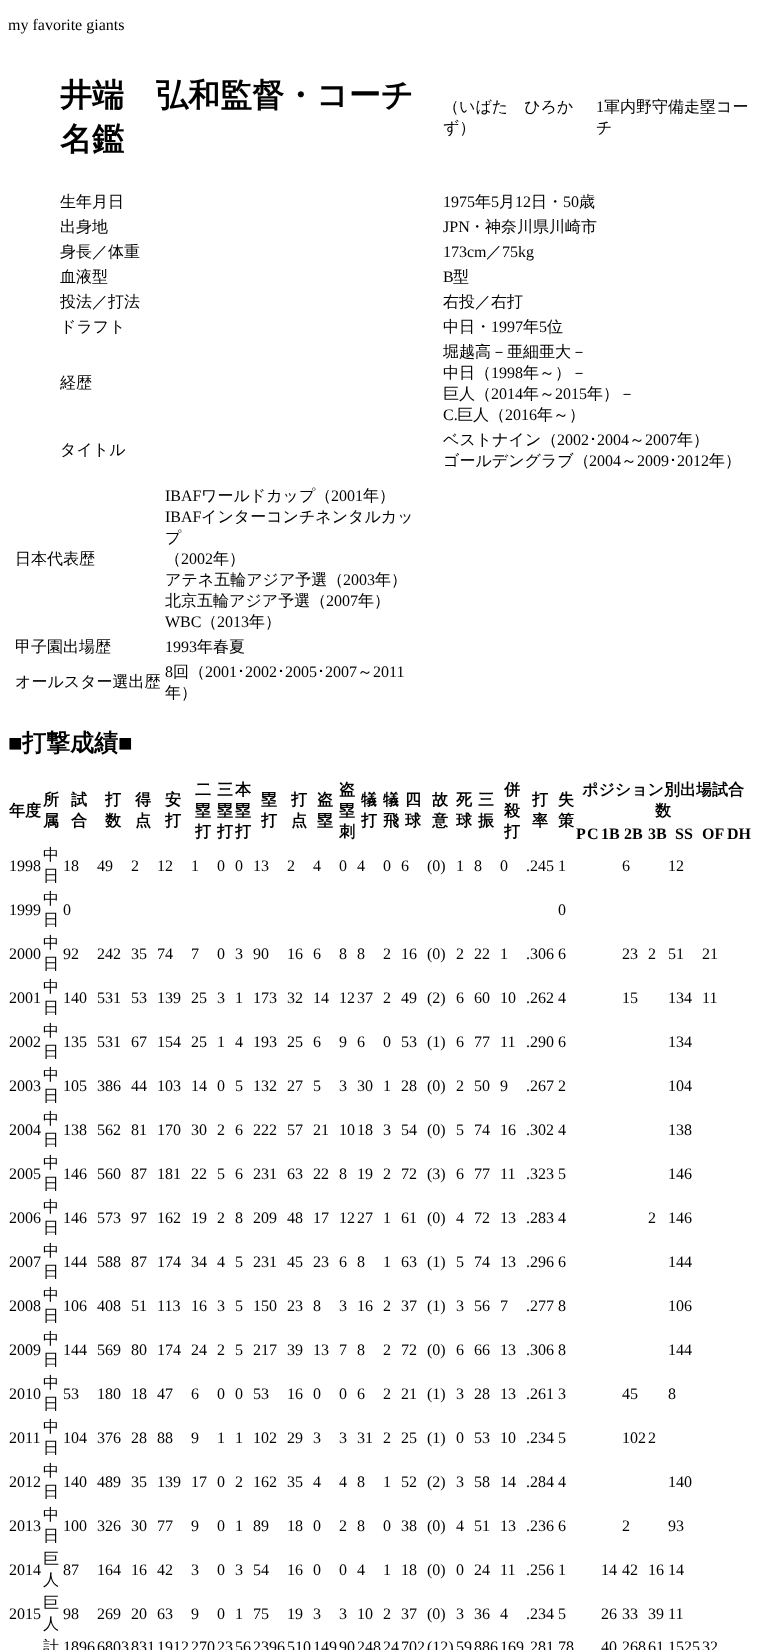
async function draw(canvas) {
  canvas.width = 759;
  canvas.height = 1650;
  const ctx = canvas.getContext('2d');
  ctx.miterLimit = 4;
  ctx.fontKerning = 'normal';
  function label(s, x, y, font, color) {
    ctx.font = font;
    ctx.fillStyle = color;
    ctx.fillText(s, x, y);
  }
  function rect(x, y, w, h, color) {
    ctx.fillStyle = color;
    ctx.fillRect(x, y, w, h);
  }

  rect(0, 0, 759, 1650, '#fff');
  label('my favorite giants', 8, 30, '16px Liberation Serif', '#000');
  label('井端　弘和監督・コーチ', 60, 106, 'bold 32px WenQuanYi Zen Hei', '#000');
  label('名鑑', 60, 150, 'bold 32px WenQuanYi Zen Hei', '#000');
  label('（いばた　ひろか', 443, 112, '500 16px WenQuanYi Zen Hei', '#000');
  label('ず）', 443, 133, '500 16px WenQuanYi Zen Hei', '#000');
  label('1', 596, 112, '16px Liberation Serif', '#000');
  label('軍内野守備走塁コー', 604, 112, '500 16px WenQuanYi Zen Hei', '#000');
  label('チ', 596, 133, '500 16px WenQuanYi Zen Hei', '#000');
  label('生年月日', 60, 207, '500 16px WenQuanYi Zen Hei', '#000');
  label('1975', 443, 207, '16px Liberation Serif', '#000');
  label('年', 475, 207, '500 16px WenQuanYi Zen Hei', '#000');
  label('5', 491, 207, '16px Liberation Serif', '#000');
  label('月', 499, 207, '500 16px WenQuanYi Zen Hei', '#000');
  label('12', 515, 207, '16px Liberation Serif', '#000');
  label('日・', 531, 207, '500 16px WenQuanYi Zen Hei', '#000');
  label('50', 563, 207, '16px Liberation Serif', '#000');
  label('歳', 579, 207, '500 16px WenQuanYi Zen Hei', '#000');
  label('出身地', 60, 232, '500 16px WenQuanYi Zen Hei', '#000');
  label('JPN', 443, 232, '16px Liberation Serif', '#000');
  label('・神奈川県川崎市', 469, 232, '500 16px WenQuanYi Zen Hei', '#000');
  label('身長／体重', 60, 257, '500 16px WenQuanYi Zen Hei', '#000');
  label('173cm', 443, 257, '16px Liberation Serif', '#000');
  label('／', 486, 257, '500 16px WenQuanYi Zen Hei', '#000');
  label('75kg', 502, 257, '16px Liberation Serif', '#000');
  label('血液型', 60, 282, '500 16px WenQuanYi Zen Hei', '#000');
  label('B', 443, 282, '16px Liberation Serif', '#000');
  label('型', 453, 282, '500 16px WenQuanYi Zen Hei', '#000');
  label('投法／打法', 60, 307, '500 16px WenQuanYi Zen Hei', '#000');
  label('右投／右打', 443, 307, '500 16px WenQuanYi Zen Hei', '#000');
  label('ドラフト', 60, 332, '500 16px WenQuanYi Zen Hei', '#000');
  label('中日・', 443, 332, '500 16px WenQuanYi Zen Hei', '#000');
  label('1997', 491, 332, '16px Liberation Serif', '#000');
  label('年', 523, 332, '500 16px WenQuanYi Zen Hei', '#000');
  label('5', 539, 332, '16px Liberation Serif', '#000');
  label('位', 547, 332, '500 16px WenQuanYi Zen Hei', '#000');
  label('経歴', 60, 388, '500 16px WenQuanYi Zen Hei', '#000');
  label('堀越高－亜細亜大－', 443, 357, '500 16px WenQuanYi Zen Hei', '#000');
  label('中日（', 443, 378, '500 16px WenQuanYi Zen Hei', '#000');
  label('1998', 491, 378, '16px Liberation Serif', '#000');
  label('年～）－', 523, 378, '500 16px WenQuanYi Zen Hei', '#000');
  label('巨人（', 443, 399, '500 16px WenQuanYi Zen Hei', '#000');
  label('2014', 491, 399, '16px Liberation Serif', '#000');
  label('年～', 523, 399, '500 16px WenQuanYi Zen Hei', '#000');
  label('2015', 555, 399, '16px Liberation Serif', '#000');
  label('年）－', 587, 399, '500 16px WenQuanYi Zen Hei', '#000');
  label('C.', 443, 420, '16px Liberation Serif', '#000');
  label('巨人（', 457, 420, '500 16px WenQuanYi Zen Hei', '#000');
  label('2016', 505, 420, '16px Liberation Serif', '#000');
  label('年～）', 537, 420, '500 16px WenQuanYi Zen Hei', '#000');
  label('タイトル', 60, 455, '500 16px WenQuanYi Zen Hei', '#000');
  label('ベストナイン（', 443, 445, '500 16px WenQuanYi Zen Hei', '#000');
  label('2002', 557, 445, '16px Liberation Serif', '#000');
  label('･', 589, 445, '16px IPAPGothic', '#000');
  label('2004', 597, 445, '16px Liberation Serif', '#000');
  label('2007', 645, 445, '16px Liberation Serif', '#000');
  label('年）', 677, 445, '500 16px WenQuanYi Zen Hei', '#000');
  label('～', 629, 445, '500 16px WenQuanYi Zen Hei', '#000');
  label('ゴールデングラブ（', 443, 466, '500 16px WenQuanYi Zen Hei', '#000');
  label('2004', 589, 466, '16px Liberation Serif', '#000');
  label('2009', 637, 466, '16px Liberation Serif', '#000');
  label('･', 669, 466, '16px IPAPGothic', '#000');
  label('2012', 677, 466, '16px Liberation Serif', '#000');
  label('年）', 709, 466, '500 16px WenQuanYi Zen Hei', '#000');
  label('～', 621, 466, '500 16px WenQuanYi Zen Hei', '#000');
  label('日本代表歴', 15, 564, '500 16px WenQuanYi Zen Hei', '#000');
  label('IBAF', 165, 501, '16px Liberation Serif', '#000');
  label('ワールドカップ（', 201, 501, '500 16px WenQuanYi Zen Hei', '#000');
  label('2001', 331, 501, '16px Liberation Serif', '#000');
  label('年）', 363, 501, '500 16px WenQuanYi Zen Hei', '#000');
  label('IBAF', 165, 522, '16px Liberation Serif', '#000');
  label('インターコンチネンタルカッ', 201, 522, '500 16px WenQuanYi Zen Hei', '#000');
  label('プ', 165, 543, '500 16px WenQuanYi Zen Hei', '#000');
  label('（', 165, 564, '500 16px WenQuanYi Zen Hei', '#000');
  label('2002', 181, 564, '16px Liberation Serif', '#000');
  label('年）', 213, 564, '500 16px WenQuanYi Zen Hei', '#000');
  label('アテネ五輪アジア予選（', 165, 585, '500 16px WenQuanYi Zen Hei', '#000');
  label('2003', 343, 585, '16px Liberation Serif', '#000');
  label('年）', 375, 585, '500 16px WenQuanYi Zen Hei', '#000');
  label('北京五輪アジア予選（', 165, 606, '500 16px WenQuanYi Zen Hei', '#000');
  label('2007', 326, 606, '16px Liberation Serif', '#000');
  label('年）', 358, 606, '500 16px WenQuanYi Zen Hei', '#000');
  label('WBC', 165, 627, '16px Liberation Serif', '#000');
  label('（', 201, 627, '500 16px WenQuanYi Zen Hei', '#000');
  label('2013', 217, 627, '16px Liberation Serif', '#000');
  label('年）', 249, 627, '500 16px WenQuanYi Zen Hei', '#000');
  label('甲子園出場歴', 15, 652, '500 16px WenQuanYi Zen Hei', '#000');
  label('1993', 165, 652, '16px Liberation Serif', '#000');
  label('年春夏', 197, 652, '500 16px WenQuanYi Zen Hei', '#000');
  label('オールスター選出歴', 15, 687, '500 16px WenQuanYi Zen Hei', '#000');
  label('8', 165, 677, '16px Liberation Serif', '#000');
  label('回（', 173, 677, '500 16px WenQuanYi Zen Hei', '#000');
  label('2001', 205, 677, '16px Liberation Serif', '#000');
  label('･', 237, 677, '16px IPAPGothic', '#000');
  label('2002', 245, 677, '16px Liberation Serif', '#000');
  label('･', 277, 677, '16px IPAPGothic', '#000');
  label('2005', 285, 677, '16px Liberation Serif', '#000');
  label('･', 317, 677, '16px IPAPGothic', '#000');
  label('2007', 325, 677, '16px Liberation Serif', '#000');
  label('2011', 373, 677, '16px Liberation Serif', '#000');
  label('～', 357, 677, '500 16px WenQuanYi Zen Hei', '#000');
  label('年）', 165, 698, '500 16px WenQuanYi Zen Hei', '#000');
  label('■', 8, 751, 'bold 24px Liberation Serif', '#000');
  label('打撃成績', 22, 751, 'bold 24px WenQuanYi Zen Hei', '#000');
  label('■', 118, 751, 'bold 24px Liberation Serif', '#000');
  label('年度', 9, 816, 'bold 16px WenQuanYi Zen Hei', '#000');
  label('所', 43, 805, 'bold 16px WenQuanYi Zen Hei', '#000');
  label('属', 43, 826, 'bold 16px WenQuanYi Zen Hei', '#000');
  label('試', 71, 805, 'bold 16px WenQuanYi Zen Hei', '#000');
  label('合', 71, 826, 'bold 16px WenQuanYi Zen Hei', '#000');
  label('打', 105, 805, 'bold 16px WenQuanYi Zen Hei', '#000');
  label('数', 105, 826, 'bold 16px WenQuanYi Zen Hei', '#000');
  label('得', 135, 805, 'bold 16px WenQuanYi Zen Hei', '#000');
  label('点', 135, 826, 'bold 16px WenQuanYi Zen Hei', '#000');
  label('安', 165, 805, 'bold 16px WenQuanYi Zen Hei', '#000');
  label('打', 165, 826, 'bold 16px WenQuanYi Zen Hei', '#000');
  label('二', 195, 795, 'bold 16px WenQuanYi Zen Hei', '#000');
  label('塁', 195, 816, 'bold 16px WenQuanYi Zen Hei', '#000');
  label('打', 195, 837, 'bold 16px WenQuanYi Zen Hei', '#000');
  label('三', 217, 795, 'bold 16px WenQuanYi Zen Hei', '#000');
  label('塁', 217, 816, 'bold 16px WenQuanYi Zen Hei', '#000');
  label('打', 217, 837, 'bold 16px WenQuanYi Zen Hei', '#000');
  label('本', 235, 795, 'bold 16px WenQuanYi Zen Hei', '#000');
  label('塁', 235, 816, 'bold 16px WenQuanYi Zen Hei', '#000');
  label('打', 235, 837, 'bold 16px WenQuanYi Zen Hei', '#000');
  label('塁', 261, 805, 'bold 16px WenQuanYi Zen Hei', '#000');
  label('打', 261, 826, 'bold 16px WenQuanYi Zen Hei', '#000');
  label('打', 291, 805, 'bold 16px WenQuanYi Zen Hei', '#000');
  label('点', 291, 826, 'bold 16px WenQuanYi Zen Hei', '#000');
  label('盗', 317, 805, 'bold 16px WenQuanYi Zen Hei', '#000');
  label('塁', 317, 826, 'bold 16px WenQuanYi Zen Hei', '#000');
  label('盗', 339, 795, 'bold 16px WenQuanYi Zen Hei', '#000');
  label('塁', 339, 816, 'bold 16px WenQuanYi Zen Hei', '#000');
  label('刺', 339, 837, 'bold 16px WenQuanYi Zen Hei', '#000');
  label('犠', 361, 805, 'bold 16px WenQuanYi Zen Hei', '#000');
  label('打', 361, 826, 'bold 16px WenQuanYi Zen Hei', '#000');
  label('犠', 383, 805, 'bold 16px WenQuanYi Zen Hei', '#000');
  label('飛', 383, 826, 'bold 16px WenQuanYi Zen Hei', '#000');
  label('四', 405, 805, 'bold 16px WenQuanYi Zen Hei', '#000');
  label('球', 405, 826, 'bold 16px WenQuanYi Zen Hei', '#000');
  label('故', 432, 805, 'bold 16px WenQuanYi Zen Hei', '#000');
  label('意', 432, 826, 'bold 16px WenQuanYi Zen Hei', '#000');
  label('死', 456, 805, 'bold 16px WenQuanYi Zen Hei', '#000');
  label('球', 456, 826, 'bold 16px WenQuanYi Zen Hei', '#000');
  label('三', 478, 805, 'bold 16px WenQuanYi Zen Hei', '#000');
  label('振', 478, 826, 'bold 16px WenQuanYi Zen Hei', '#000');
  label('併', 504, 795, 'bold 16px WenQuanYi Zen Hei', '#000');
  label('殺', 504, 816, 'bold 16px WenQuanYi Zen Hei', '#000');
  label('打', 504, 837, 'bold 16px WenQuanYi Zen Hei', '#000');
  label('打', 532, 805, 'bold 16px WenQuanYi Zen Hei', '#000');
  label('率', 532, 826, 'bold 16px WenQuanYi Zen Hei', '#000');
  label('失', 558, 805, 'bold 16px WenQuanYi Zen Hei', '#000');
  label('策', 558, 826, 'bold 16px WenQuanYi Zen Hei', '#000');
  label('ポジション別出場試合', 582, 795, 'bold 16px WenQuanYi Zen Hei', '#000');
  label('数', 655, 816, 'bold 16px WenQuanYi Zen Hei', '#000');
  label('P', 576, 839, 'bold 16px Liberation Serif', '#000');
  label('C', 587, 839, 'bold 16px Liberation Serif', '#000');
  label('1B', 601, 839, 'bold 16px Liberation Serif', '#000');
  label('2B', 624, 839, 'bold 16px Liberation Serif', '#000');
  label('3B', 648, 839, 'bold 16px Liberation Serif', '#000');
  label('SS', 675, 839, 'bold 16px Liberation Serif', '#000');
  label('OF', 702, 839, 'bold 16px Liberation Serif', '#000');
  label('DH', 727, 839, 'bold 16px Liberation Serif', '#000');
  label('1998', 9, 871, '16px Liberation Serif', '#000');
  label('中', 43, 860, '500 16px WenQuanYi Zen Hei', '#000');
  label('日', 43, 881, '500 16px WenQuanYi Zen Hei', '#000');
  label('18', 63, 871, '16px Liberation Serif', '#000');
  label('49', 97, 871, '16px Liberation Serif', '#000');
  label('2', 131, 871, '16px Liberation Serif', '#000');
  label('12', 157, 871, '16px Liberation Serif', '#000');
  label('1', 191, 871, '16px Liberation Serif', '#000');
  label('0', 217, 871, '16px Liberation Serif', '#000');
  label('0', 235, 871, '16px Liberation Serif', '#000');
  label('13', 253, 871, '16px Liberation Serif', '#000');
  label('2', 287, 871, '16px Liberation Serif', '#000');
  label('4', 313, 871, '16px Liberation Serif', '#000');
  label('0', 339, 871, '16px Liberation Serif', '#000');
  label('4', 357, 871, '16px Liberation Serif', '#000');
  label('0', 383, 871, '16px Liberation Serif', '#000');
  label('6', 401, 871, '16px Liberation Serif', '#000');
  label('(0)', 427, 871, '16px Liberation Serif', '#000');
  label('1', 456, 871, '16px Liberation Serif', '#000');
  label('8', 474, 871, '16px Liberation Serif', '#000');
  label('0', 500, 871, '16px Liberation Serif', '#000');
  label('.245 1', 526, 871, '16px Liberation Serif', '#000');
  label('6', 622, 871, '16px Liberation Serif', '#000');
  label('12', 668, 871, '16px Liberation Serif', '#000');
  label('1999', 9, 915, '16px Liberation Serif', '#000');
  label('中', 43, 904, '500 16px WenQuanYi Zen Hei', '#000');
  label('日', 43, 925, '500 16px WenQuanYi Zen Hei', '#000');
  label('0', 63, 915, '16px Liberation Serif', '#000');
  label('0', 558, 915, '16px Liberation Serif', '#000');
  label('2000', 9, 959, '16px Liberation Serif', '#000');
  label('中', 43, 948, '500 16px WenQuanYi Zen Hei', '#000');
  label('日', 43, 969, '500 16px WenQuanYi Zen Hei', '#000');
  label('92', 63, 959, '16px Liberation Serif', '#000');
  label('242', 97, 959, '16px Liberation Serif', '#000');
  label('35', 131, 959, '16px Liberation Serif', '#000');
  label('74', 157, 959, '16px Liberation Serif', '#000');
  label('7', 191, 959, '16px Liberation Serif', '#000');
  label('0', 217, 959, '16px Liberation Serif', '#000');
  label('3', 235, 959, '16px Liberation Serif', '#000');
  label('90', 253, 959, '16px Liberation Serif', '#000');
  label('16', 287, 959, '16px Liberation Serif', '#000');
  label('6', 313, 959, '16px Liberation Serif', '#000');
  label('8', 339, 959, '16px Liberation Serif', '#000');
  label('8', 357, 959, '16px Liberation Serif', '#000');
  label('2', 383, 959, '16px Liberation Serif', '#000');
  label('16', 401, 959, '16px Liberation Serif', '#000');
  label('(0)', 427, 959, '16px Liberation Serif', '#000');
  label('2', 456, 959, '16px Liberation Serif', '#000');
  label('22', 474, 959, '16px Liberation Serif', '#000');
  label('1', 500, 959, '16px Liberation Serif', '#000');
  label('.306 6', 526, 959, '16px Liberation Serif', '#000');
  label('23', 622, 959, '16px Liberation Serif', '#000');
  label('2', 648, 959, '16px Liberation Serif', '#000');
  label('51', 668, 959, '16px Liberation Serif', '#000');
  label('21', 702, 959, '16px Liberation Serif', '#000');
  label('2001', 9, 1003, '16px Liberation Serif', '#000');
  label('中', 43, 992, '500 16px WenQuanYi Zen Hei', '#000');
  label('日', 43, 1013, '500 16px WenQuanYi Zen Hei', '#000');
  label('140', 63, 1003, '16px Liberation Serif', '#000');
  label('531', 97, 1003, '16px Liberation Serif', '#000');
  label('53', 131, 1003, '16px Liberation Serif', '#000');
  label('139', 157, 1003, '16px Liberation Serif', '#000');
  label('25', 191, 1003, '16px Liberation Serif', '#000');
  label('3', 217, 1003, '16px Liberation Serif', '#000');
  label('1', 235, 1003, '16px Liberation Serif', '#000');
  label('173', 253, 1003, '16px Liberation Serif', '#000');
  label('32', 287, 1003, '16px Liberation Serif', '#000');
  label('14', 313, 1003, '16px Liberation Serif', '#000');
  label('12', 339, 1003, '16px Liberation Serif', '#000');
  label('37', 357, 1003, '16px Liberation Serif', '#000');
  label('2', 383, 1003, '16px Liberation Serif', '#000');
  label('49', 401, 1003, '16px Liberation Serif', '#000');
  label('(2)', 427, 1003, '16px Liberation Serif', '#000');
  label('6', 456, 1003, '16px Liberation Serif', '#000');
  label('60', 474, 1003, '16px Liberation Serif', '#000');
  label('10', 500, 1003, '16px Liberation Serif', '#000');
  label('.262 4', 526, 1003, '16px Liberation Serif', '#000');
  label('15', 622, 1003, '16px Liberation Serif', '#000');
  label('134', 668, 1003, '16px Liberation Serif', '#000');
  label('11', 702, 1003, '16px Liberation Serif', '#000');
  label('2002', 9, 1047, '16px Liberation Serif', '#000');
  label('中', 43, 1036, '500 16px WenQuanYi Zen Hei', '#000');
  label('日', 43, 1057, '500 16px WenQuanYi Zen Hei', '#000');
  label('135', 63, 1047, '16px Liberation Serif', '#000');
  label('531', 97, 1047, '16px Liberation Serif', '#000');
  label('67', 131, 1047, '16px Liberation Serif', '#000');
  label('154', 157, 1047, '16px Liberation Serif', '#000');
  label('25', 191, 1047, '16px Liberation Serif', '#000');
  label('1', 217, 1047, '16px Liberation Serif', '#000');
  label('4', 235, 1047, '16px Liberation Serif', '#000');
  label('193', 253, 1047, '16px Liberation Serif', '#000');
  label('25', 287, 1047, '16px Liberation Serif', '#000');
  label('6', 313, 1047, '16px Liberation Serif', '#000');
  label('9', 339, 1047, '16px Liberation Serif', '#000');
  label('6', 357, 1047, '16px Liberation Serif', '#000');
  label('0', 383, 1047, '16px Liberation Serif', '#000');
  label('53', 401, 1047, '16px Liberation Serif', '#000');
  label('(1)', 427, 1047, '16px Liberation Serif', '#000');
  label('6', 456, 1047, '16px Liberation Serif', '#000');
  label('77', 474, 1047, '16px Liberation Serif', '#000');
  label('11', 500, 1047, '16px Liberation Serif', '#000');
  label('.290 6', 526, 1047, '16px Liberation Serif', '#000');
  label('134', 668, 1047, '16px Liberation Serif', '#000');
  label('2003', 9, 1091, '16px Liberation Serif', '#000');
  label('中', 43, 1080, '500 16px WenQuanYi Zen Hei', '#000');
  label('日', 43, 1101, '500 16px WenQuanYi Zen Hei', '#000');
  label('105', 63, 1091, '16px Liberation Serif', '#000');
  label('386', 97, 1091, '16px Liberation Serif', '#000');
  label('44', 131, 1091, '16px Liberation Serif', '#000');
  label('103', 157, 1091, '16px Liberation Serif', '#000');
  label('14', 191, 1091, '16px Liberation Serif', '#000');
  label('0', 217, 1091, '16px Liberation Serif', '#000');
  label('5', 235, 1091, '16px Liberation Serif', '#000');
  label('132', 253, 1091, '16px Liberation Serif', '#000');
  label('27', 287, 1091, '16px Liberation Serif', '#000');
  label('5', 313, 1091, '16px Liberation Serif', '#000');
  label('3', 339, 1091, '16px Liberation Serif', '#000');
  label('30', 357, 1091, '16px Liberation Serif', '#000');
  label('1', 383, 1091, '16px Liberation Serif', '#000');
  label('28', 401, 1091, '16px Liberation Serif', '#000');
  label('(0)', 427, 1091, '16px Liberation Serif', '#000');
  label('2', 456, 1091, '16px Liberation Serif', '#000');
  label('50', 474, 1091, '16px Liberation Serif', '#000');
  label('9', 500, 1091, '16px Liberation Serif', '#000');
  label('.267 2', 526, 1091, '16px Liberation Serif', '#000');
  label('104', 668, 1091, '16px Liberation Serif', '#000');
  label('2004', 9, 1135, '16px Liberation Serif', '#000');
  label('中', 43, 1124, '500 16px WenQuanYi Zen Hei', '#000');
  label('日', 43, 1145, '500 16px WenQuanYi Zen Hei', '#000');
  label('138', 63, 1135, '16px Liberation Serif', '#000');
  label('562', 97, 1135, '16px Liberation Serif', '#000');
  label('81', 131, 1135, '16px Liberation Serif', '#000');
  label('170', 157, 1135, '16px Liberation Serif', '#000');
  label('30', 191, 1135, '16px Liberation Serif', '#000');
  label('2', 217, 1135, '16px Liberation Serif', '#000');
  label('6', 235, 1135, '16px Liberation Serif', '#000');
  label('222', 253, 1135, '16px Liberation Serif', '#000');
  label('57', 287, 1135, '16px Liberation Serif', '#000');
  label('21', 313, 1135, '16px Liberation Serif', '#000');
  label('10', 339, 1135, '16px Liberation Serif', '#000');
  label('18', 357, 1135, '16px Liberation Serif', '#000');
  label('3', 383, 1135, '16px Liberation Serif', '#000');
  label('54', 401, 1135, '16px Liberation Serif', '#000');
  label('(0)', 427, 1135, '16px Liberation Serif', '#000');
  label('5', 456, 1135, '16px Liberation Serif', '#000');
  label('74', 474, 1135, '16px Liberation Serif', '#000');
  label('16', 500, 1135, '16px Liberation Serif', '#000');
  label('.302 4', 526, 1135, '16px Liberation Serif', '#000');
  label('138', 668, 1135, '16px Liberation Serif', '#000');
  label('2005', 9, 1179, '16px Liberation Serif', '#000');
  label('中', 43, 1168, '500 16px WenQuanYi Zen Hei', '#000');
  label('日', 43, 1189, '500 16px WenQuanYi Zen Hei', '#000');
  label('146', 63, 1179, '16px Liberation Serif', '#000');
  label('560', 97, 1179, '16px Liberation Serif', '#000');
  label('87', 131, 1179, '16px Liberation Serif', '#000');
  label('181', 157, 1179, '16px Liberation Serif', '#000');
  label('22', 191, 1179, '16px Liberation Serif', '#000');
  label('5', 217, 1179, '16px Liberation Serif', '#000');
  label('6', 235, 1179, '16px Liberation Serif', '#000');
  label('231', 253, 1179, '16px Liberation Serif', '#000');
  label('63', 287, 1179, '16px Liberation Serif', '#000');
  label('22', 313, 1179, '16px Liberation Serif', '#000');
  label('8', 339, 1179, '16px Liberation Serif', '#000');
  label('19', 357, 1179, '16px Liberation Serif', '#000');
  label('2', 383, 1179, '16px Liberation Serif', '#000');
  label('72', 401, 1179, '16px Liberation Serif', '#000');
  label('(3)', 427, 1179, '16px Liberation Serif', '#000');
  label('6', 456, 1179, '16px Liberation Serif', '#000');
  label('77', 474, 1179, '16px Liberation Serif', '#000');
  label('11', 500, 1179, '16px Liberation Serif', '#000');
  label('.323 5', 526, 1179, '16px Liberation Serif', '#000');
  label('146', 668, 1179, '16px Liberation Serif', '#000');
  label('2006', 9, 1223, '16px Liberation Serif', '#000');
  label('中', 43, 1212, '500 16px WenQuanYi Zen Hei', '#000');
  label('日', 43, 1233, '500 16px WenQuanYi Zen Hei', '#000');
  label('146', 63, 1223, '16px Liberation Serif', '#000');
  label('573', 97, 1223, '16px Liberation Serif', '#000');
  label('97', 131, 1223, '16px Liberation Serif', '#000');
  label('162', 157, 1223, '16px Liberation Serif', '#000');
  label('19', 191, 1223, '16px Liberation Serif', '#000');
  label('2', 217, 1223, '16px Liberation Serif', '#000');
  label('8', 235, 1223, '16px Liberation Serif', '#000');
  label('209', 253, 1223, '16px Liberation Serif', '#000');
  label('48', 287, 1223, '16px Liberation Serif', '#000');
  label('17', 313, 1223, '16px Liberation Serif', '#000');
  label('12', 339, 1223, '16px Liberation Serif', '#000');
  label('27', 357, 1223, '16px Liberation Serif', '#000');
  label('1', 383, 1223, '16px Liberation Serif', '#000');
  label('61', 401, 1223, '16px Liberation Serif', '#000');
  label('(0)', 427, 1223, '16px Liberation Serif', '#000');
  label('4', 456, 1223, '16px Liberation Serif', '#000');
  label('72', 474, 1223, '16px Liberation Serif', '#000');
  label('13', 500, 1223, '16px Liberation Serif', '#000');
  label('.283 4', 526, 1223, '16px Liberation Serif', '#000');
  label('2', 648, 1223, '16px Liberation Serif', '#000');
  label('146', 668, 1223, '16px Liberation Serif', '#000');
  label('2007', 9, 1267, '16px Liberation Serif', '#000');
  label('中', 43, 1256, '500 16px WenQuanYi Zen Hei', '#000');
  label('日', 43, 1277, '500 16px WenQuanYi Zen Hei', '#000');
  label('144', 63, 1267, '16px Liberation Serif', '#000');
  label('588', 97, 1267, '16px Liberation Serif', '#000');
  label('87', 131, 1267, '16px Liberation Serif', '#000');
  label('174', 157, 1267, '16px Liberation Serif', '#000');
  label('34', 191, 1267, '16px Liberation Serif', '#000');
  label('4', 217, 1267, '16px Liberation Serif', '#000');
  label('5', 235, 1267, '16px Liberation Serif', '#000');
  label('231', 253, 1267, '16px Liberation Serif', '#000');
  label('45', 287, 1267, '16px Liberation Serif', '#000');
  label('23', 313, 1267, '16px Liberation Serif', '#000');
  label('6', 339, 1267, '16px Liberation Serif', '#000');
  label('8', 357, 1267, '16px Liberation Serif', '#000');
  label('1', 383, 1267, '16px Liberation Serif', '#000');
  label('63', 401, 1267, '16px Liberation Serif', '#000');
  label('(1)', 427, 1267, '16px Liberation Serif', '#000');
  label('5', 456, 1267, '16px Liberation Serif', '#000');
  label('74', 474, 1267, '16px Liberation Serif', '#000');
  label('13', 500, 1267, '16px Liberation Serif', '#000');
  label('.296 6', 526, 1267, '16px Liberation Serif', '#000');
  label('144', 668, 1267, '16px Liberation Serif', '#000');
  label('2008', 9, 1311, '16px Liberation Serif', '#000');
  label('中', 43, 1300, '500 16px WenQuanYi Zen Hei', '#000');
  label('日', 43, 1321, '500 16px WenQuanYi Zen Hei', '#000');
  label('106', 63, 1311, '16px Liberation Serif', '#000');
  label('408', 97, 1311, '16px Liberation Serif', '#000');
  label('51', 131, 1311, '16px Liberation Serif', '#000');
  label('113', 157, 1311, '16px Liberation Serif', '#000');
  label('16', 191, 1311, '16px Liberation Serif', '#000');
  label('3', 217, 1311, '16px Liberation Serif', '#000');
  label('5', 235, 1311, '16px Liberation Serif', '#000');
  label('150', 253, 1311, '16px Liberation Serif', '#000');
  label('23', 287, 1311, '16px Liberation Serif', '#000');
  label('8', 313, 1311, '16px Liberation Serif', '#000');
  label('3', 339, 1311, '16px Liberation Serif', '#000');
  label('16', 357, 1311, '16px Liberation Serif', '#000');
  label('2', 383, 1311, '16px Liberation Serif', '#000');
  label('37', 401, 1311, '16px Liberation Serif', '#000');
  label('(1)', 427, 1311, '16px Liberation Serif', '#000');
  label('3', 456, 1311, '16px Liberation Serif', '#000');
  label('56', 474, 1311, '16px Liberation Serif', '#000');
  label('7', 500, 1311, '16px Liberation Serif', '#000');
  label('.277 8', 526, 1311, '16px Liberation Serif', '#000');
  label('106', 668, 1311, '16px Liberation Serif', '#000');
  label('2009', 9, 1355, '16px Liberation Serif', '#000');
  label('中', 43, 1344, '500 16px WenQuanYi Zen Hei', '#000');
  label('日', 43, 1365, '500 16px WenQuanYi Zen Hei', '#000');
  label('144', 63, 1355, '16px Liberation Serif', '#000');
  label('569', 97, 1355, '16px Liberation Serif', '#000');
  label('80', 131, 1355, '16px Liberation Serif', '#000');
  label('174', 157, 1355, '16px Liberation Serif', '#000');
  label('24', 191, 1355, '16px Liberation Serif', '#000');
  label('2', 217, 1355, '16px Liberation Serif', '#000');
  label('5', 235, 1355, '16px Liberation Serif', '#000');
  label('217', 253, 1355, '16px Liberation Serif', '#000');
  label('39', 287, 1355, '16px Liberation Serif', '#000');
  label('13', 313, 1355, '16px Liberation Serif', '#000');
  label('7', 339, 1355, '16px Liberation Serif', '#000');
  label('8', 357, 1355, '16px Liberation Serif', '#000');
  label('2', 383, 1355, '16px Liberation Serif', '#000');
  label('72', 401, 1355, '16px Liberation Serif', '#000');
  label('(0)', 427, 1355, '16px Liberation Serif', '#000');
  label('6', 456, 1355, '16px Liberation Serif', '#000');
  label('66', 474, 1355, '16px Liberation Serif', '#000');
  label('13', 500, 1355, '16px Liberation Serif', '#000');
  label('.306 8', 526, 1355, '16px Liberation Serif', '#000');
  label('144', 668, 1355, '16px Liberation Serif', '#000');
  label('2010', 9, 1399, '16px Liberation Serif', '#000');
  label('中', 43, 1388, '500 16px WenQuanYi Zen Hei', '#000');
  label('日', 43, 1409, '500 16px WenQuanYi Zen Hei', '#000');
  label('53', 63, 1399, '16px Liberation Serif', '#000');
  label('180', 97, 1399, '16px Liberation Serif', '#000');
  label('18', 131, 1399, '16px Liberation Serif', '#000');
  label('47', 157, 1399, '16px Liberation Serif', '#000');
  label('6', 191, 1399, '16px Liberation Serif', '#000');
  label('0', 217, 1399, '16px Liberation Serif', '#000');
  label('0', 235, 1399, '16px Liberation Serif', '#000');
  label('53', 253, 1399, '16px Liberation Serif', '#000');
  label('16', 287, 1399, '16px Liberation Serif', '#000');
  label('0', 313, 1399, '16px Liberation Serif', '#000');
  label('0', 339, 1399, '16px Liberation Serif', '#000');
  label('6', 357, 1399, '16px Liberation Serif', '#000');
  label('2', 383, 1399, '16px Liberation Serif', '#000');
  label('21', 401, 1399, '16px Liberation Serif', '#000');
  label('(1)', 427, 1399, '16px Liberation Serif', '#000');
  label('3', 456, 1399, '16px Liberation Serif', '#000');
  label('28', 474, 1399, '16px Liberation Serif', '#000');
  label('13', 500, 1399, '16px Liberation Serif', '#000');
  label('.261 3', 526, 1399, '16px Liberation Serif', '#000');
  label('45', 622, 1399, '16px Liberation Serif', '#000');
  label('8', 668, 1399, '16px Liberation Serif', '#000');
  label('2011', 9, 1443, '16px Liberation Serif', '#000');
  label('中', 43, 1432, '500 16px WenQuanYi Zen Hei', '#000');
  label('日', 43, 1453, '500 16px WenQuanYi Zen Hei', '#000');
  label('104', 63, 1443, '16px Liberation Serif', '#000');
  label('376', 97, 1443, '16px Liberation Serif', '#000');
  label('28', 131, 1443, '16px Liberation Serif', '#000');
  label('88', 157, 1443, '16px Liberation Serif', '#000');
  label('9', 191, 1443, '16px Liberation Serif', '#000');
  label('1', 217, 1443, '16px Liberation Serif', '#000');
  label('1', 235, 1443, '16px Liberation Serif', '#000');
  label('102', 253, 1443, '16px Liberation Serif', '#000');
  label('29', 287, 1443, '16px Liberation Serif', '#000');
  label('3', 313, 1443, '16px Liberation Serif', '#000');
  label('3', 339, 1443, '16px Liberation Serif', '#000');
  label('31', 357, 1443, '16px Liberation Serif', '#000');
  label('2', 383, 1443, '16px Liberation Serif', '#000');
  label('25', 401, 1443, '16px Liberation Serif', '#000');
  label('(1)', 427, 1443, '16px Liberation Serif', '#000');
  label('0', 456, 1443, '16px Liberation Serif', '#000');
  label('53', 474, 1443, '16px Liberation Serif', '#000');
  label('10', 500, 1443, '16px Liberation Serif', '#000');
  label('.234 5', 526, 1443, '16px Liberation Serif', '#000');
  label('102', 622, 1443, '16px Liberation Serif', '#000');
  label('2', 648, 1443, '16px Liberation Serif', '#000');
  label('2012', 9, 1487, '16px Liberation Serif', '#000');
  label('中', 43, 1476, '500 16px WenQuanYi Zen Hei', '#000');
  label('日', 43, 1497, '500 16px WenQuanYi Zen Hei', '#000');
  label('140', 63, 1487, '16px Liberation Serif', '#000');
  label('489', 97, 1487, '16px Liberation Serif', '#000');
  label('35', 131, 1487, '16px Liberation Serif', '#000');
  label('139', 157, 1487, '16px Liberation Serif', '#000');
  label('17', 191, 1487, '16px Liberation Serif', '#000');
  label('0', 217, 1487, '16px Liberation Serif', '#000');
  label('2', 235, 1487, '16px Liberation Serif', '#000');
  label('162', 253, 1487, '16px Liberation Serif', '#000');
  label('35', 287, 1487, '16px Liberation Serif', '#000');
  label('4', 313, 1487, '16px Liberation Serif', '#000');
  label('4', 339, 1487, '16px Liberation Serif', '#000');
  label('8', 357, 1487, '16px Liberation Serif', '#000');
  label('1', 383, 1487, '16px Liberation Serif', '#000');
  label('52', 401, 1487, '16px Liberation Serif', '#000');
  label('(2)', 427, 1487, '16px Liberation Serif', '#000');
  label('3', 456, 1487, '16px Liberation Serif', '#000');
  label('58', 474, 1487, '16px Liberation Serif', '#000');
  label('14', 500, 1487, '16px Liberation Serif', '#000');
  label('.284 4', 526, 1487, '16px Liberation Serif', '#000');
  label('140', 668, 1487, '16px Liberation Serif', '#000');
  label('2013', 9, 1531, '16px Liberation Serif', '#000');
  label('中', 43, 1520, '500 16px WenQuanYi Zen Hei', '#000');
  label('日', 43, 1541, '500 16px WenQuanYi Zen Hei', '#000');
  label('100', 63, 1531, '16px Liberation Serif', '#000');
  label('326', 97, 1531, '16px Liberation Serif', '#000');
  label('30', 131, 1531, '16px Liberation Serif', '#000');
  label('77', 157, 1531, '16px Liberation Serif', '#000');
  label('9', 191, 1531, '16px Liberation Serif', '#000');
  label('0', 217, 1531, '16px Liberation Serif', '#000');
  label('1', 235, 1531, '16px Liberation Serif', '#000');
  label('89', 253, 1531, '16px Liberation Serif', '#000');
  label('18', 287, 1531, '16px Liberation Serif', '#000');
  label('0', 313, 1531, '16px Liberation Serif', '#000');
  label('2', 339, 1531, '16px Liberation Serif', '#000');
  label('8', 357, 1531, '16px Liberation Serif', '#000');
  label('0', 383, 1531, '16px Liberation Serif', '#000');
  label('38', 401, 1531, '16px Liberation Serif', '#000');
  label('(0)', 427, 1531, '16px Liberation Serif', '#000');
  label('4', 456, 1531, '16px Liberation Serif', '#000');
  label('51', 474, 1531, '16px Liberation Serif', '#000');
  label('13', 500, 1531, '16px Liberation Serif', '#000');
  label('.236 6', 526, 1531, '16px Liberation Serif', '#000');
  label('2', 622, 1531, '16px Liberation Serif', '#000');
  label('93', 668, 1531, '16px Liberation Serif', '#000');
  label('2014', 9, 1575, '16px Liberation Serif', '#000');
  label('巨', 43, 1564, '500 16px WenQuanYi Zen Hei', '#000');
  label('人', 43, 1585, '500 16px WenQuanYi Zen Hei', '#000');
  label('87', 63, 1575, '16px Liberation Serif', '#000');
  label('164', 97, 1575, '16px Liberation Serif', '#000');
  label('16', 131, 1575, '16px Liberation Serif', '#000');
  label('42', 157, 1575, '16px Liberation Serif', '#000');
  label('3', 191, 1575, '16px Liberation Serif', '#000');
  label('0', 217, 1575, '16px Liberation Serif', '#000');
  label('3', 235, 1575, '16px Liberation Serif', '#000');
  label('54', 253, 1575, '16px Liberation Serif', '#000');
  label('16', 287, 1575, '16px Liberation Serif', '#000');
  label('0', 313, 1575, '16px Liberation Serif', '#000');
  label('0', 339, 1575, '16px Liberation Serif', '#000');
  label('4', 357, 1575, '16px Liberation Serif', '#000');
  label('1', 383, 1575, '16px Liberation Serif', '#000');
  label('18', 401, 1575, '16px Liberation Serif', '#000');
  label('(0)', 427, 1575, '16px Liberation Serif', '#000');
  label('0', 456, 1575, '16px Liberation Serif', '#000');
  label('24', 474, 1575, '16px Liberation Serif', '#000');
  label('11', 500, 1575, '16px Liberation Serif', '#000');
  label('.256 1', 526, 1575, '16px Liberation Serif', '#000');
  label('14', 601, 1575, '16px Liberation Serif', '#000');
  label('42', 622, 1575, '16px Liberation Serif', '#000');
  label('16', 648, 1575, '16px Liberation Serif', '#000');
  label('14', 668, 1575, '16px Liberation Serif', '#000');
  label('2015', 9, 1619, '16px Liberation Serif', '#000');
  label('巨', 43, 1608, '500 16px WenQuanYi Zen Hei', '#000');
  label('人', 43, 1629, '500 16px WenQuanYi Zen Hei', '#000');
  label('98', 63, 1619, '16px Liberation Serif', '#000');
  label('269', 97, 1619, '16px Liberation Serif', '#000');
  label('20', 131, 1619, '16px Liberation Serif', '#000');
  label('63', 157, 1619, '16px Liberation Serif', '#000');
  label('9', 191, 1619, '16px Liberation Serif', '#000');
  label('0', 217, 1619, '16px Liberation Serif', '#000');
  label('1', 235, 1619, '16px Liberation Serif', '#000');
  label('75', 253, 1619, '16px Liberation Serif', '#000');
  label('19', 287, 1619, '16px Liberation Serif', '#000');
  label('3', 313, 1619, '16px Liberation Serif', '#000');
  label('3', 339, 1619, '16px Liberation Serif', '#000');
  label('10', 357, 1619, '16px Liberation Serif', '#000');
  label('2', 383, 1619, '16px Liberation Serif', '#000');
  label('37', 401, 1619, '16px Liberation Serif', '#000');
  label('(0)', 427, 1619, '16px Liberation Serif', '#000');
  label('3', 456, 1619, '16px Liberation Serif', '#000');
  label('36', 474, 1619, '16px Liberation Serif', '#000');
  label('4', 500, 1619, '16px Liberation Serif', '#000');
  label('.234 5', 526, 1619, '16px Liberation Serif', '#000');
  label('26', 601, 1619, '16px Liberation Serif', '#000');
  label('33', 622, 1619, '16px Liberation Serif', '#000');
  label('39', 648, 1619, '16px Liberation Serif', '#000');
  label('11', 668, 1619, '16px Liberation Serif', '#000');
  label('計', 43, 1652, '500 16px WenQuanYi Zen Hei', '#000');
  label('1896', 63, 1652, '16px Liberation Serif', '#000');
  label('6803', 97, 1652, '16px Liberation Serif', '#000');
  label('831', 131, 1652, '16px Liberation Serif', '#000');
  label('1912', 157, 1652, '16px Liberation Serif', '#000');
  label('270', 191, 1652, '16px Liberation Serif', '#000');
  label('23', 217, 1652, '16px Liberation Serif', '#000');
  label('56', 235, 1652, '16px Liberation Serif', '#000');
  label('2396', 253, 1652, '16px Liberation Serif', '#000');
  label('510', 287, 1652, '16px Liberation Serif', '#000');
  label('149', 313, 1652, '16px Liberation Serif', '#000');
  label('90', 339, 1652, '16px Liberation Serif', '#000');
  label('248', 357, 1652, '16px Liberation Serif', '#000');
  label('24', 383, 1652, '16px Liberation Serif', '#000');
  label('702', 401, 1652, '16px Liberation Serif', '#000');
  label('(12)', 427, 1652, '16px Liberation Serif', '#000');
  label('59', 456, 1652, '16px Liberation Serif', '#000');
  label('886', 474, 1652, '16px Liberation Serif', '#000');
  label('169', 500, 1652, '16px Liberation Serif', '#000');
  label('281 78', 530, 1652, '16px Liberation Serif', '#000');
  label('40', 601, 1652, '16px Liberation Serif', '#000');
  label('268', 622, 1652, '16px Liberation Serif', '#000');
  label('61', 648, 1652, '16px Liberation Serif', '#000');
  label('1525', 668, 1652, '16px Liberation Serif', '#000');
  label('32', 702, 1652, '16px Liberation Serif', '#000');
}

draw(document.querySelector('canvas'));
